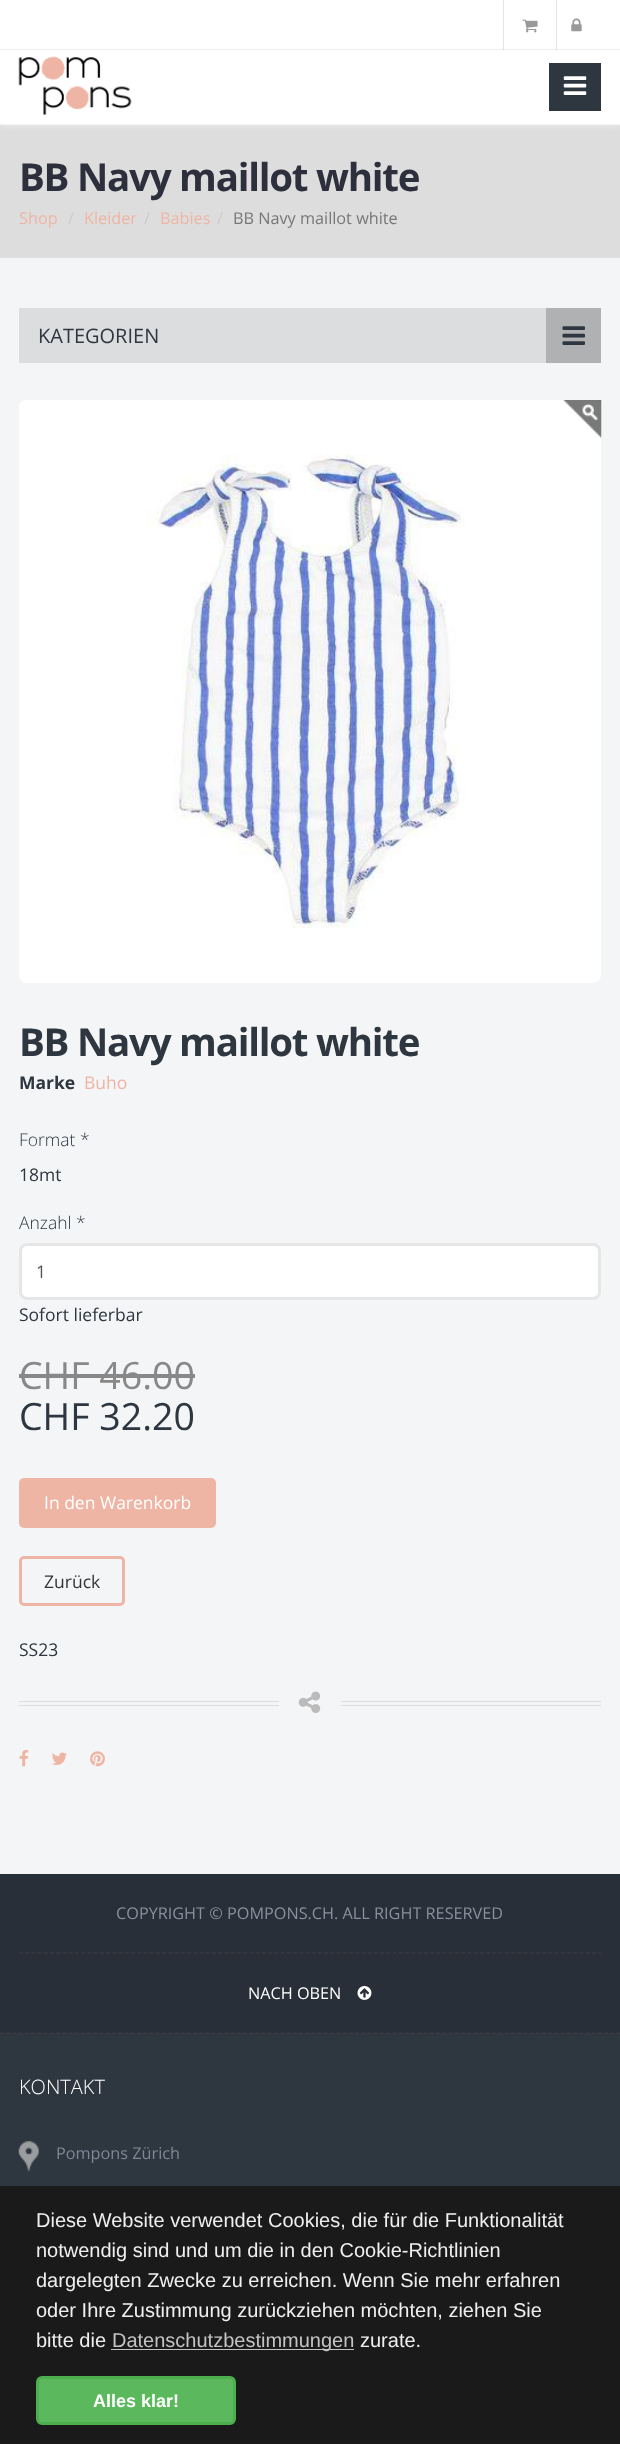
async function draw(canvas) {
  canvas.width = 620;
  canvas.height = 2444;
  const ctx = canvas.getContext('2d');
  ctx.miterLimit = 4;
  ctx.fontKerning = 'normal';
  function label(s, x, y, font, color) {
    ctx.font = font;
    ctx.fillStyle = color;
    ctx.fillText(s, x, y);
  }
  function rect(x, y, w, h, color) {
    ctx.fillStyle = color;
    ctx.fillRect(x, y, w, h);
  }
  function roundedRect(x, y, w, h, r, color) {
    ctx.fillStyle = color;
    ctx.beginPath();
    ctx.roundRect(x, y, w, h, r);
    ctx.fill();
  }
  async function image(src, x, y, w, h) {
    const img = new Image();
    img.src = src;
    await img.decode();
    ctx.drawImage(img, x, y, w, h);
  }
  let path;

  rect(0, 0, 620, 2444, '#292f38');
  rect(0, 125, 620, 133, '#ddd');
  ctx.fillStyle = '#eee';
  ctx.filter = 'blur(5px)';
  ctx.beginPath();
  ctx.rect(0, 50, 620, 75);
  ctx.fill();
  ctx.filter = 'none';
  rect(0, 0, 620, 49, '#fff');
  rect(0, 49, 620, 1, '#eee');
  rect(503, 0, 1, 50, '#0000001a');
  await image('assets/img1.png', 522, 19, 16, 14);
  rect(556, 0, 1, 50, '#0000001a');
  await image('assets/img2.png', 571, 18, 11, 14);
  rect(0, 50, 620, 74, '#fff');
  rect(0, 124, 620, 1, '#f4f5f7');
  await image('assets/img3.png', 18, 56, 114, 59);
  rect(549, 63, 52, 48, '#2e363f');
  await image('assets/img4.png', 563, 76, 24, 19);
  rect(0, 258, 620, 1616, '#f4f5f7');
  ctx.letterSpacing = '-1.25px';
  label('BB Navy maillot white', 19, 191, 'bold 38.5px Open Sans', '#2d2f3c');
  ctx.letterSpacing = '0px';
  label('Shop', 19, 224, '16.25px Open Sans', '#efb5a4');
  label('/', 68, 224, '16.25px Open Sans', '#ccc');
  label('Kleider', 84, 224, '16.25px Open Sans', '#efb5a4');
  label('/', 144, 224, '16.25px Open Sans', '#ccc');
  label('Babies', 160, 224, '16.25px Open Sans', '#efb5a4');
  label('/', 217, 224, '16.25px Open Sans', '#ccc');
  label('BB Navy maillot white', 233, 224, '16.25px Open Sans', '#777');
  rect(19, 308, 527, 55, '#dcddde');
  label('KATEGORIEN', 38, 343, '20px Open Sans', '#2e363f');
  rect(546, 308, 55, 55, '#b0b1b2');
  await image('assets/img5.png', 562, 326, 23, 19);
  roundedRect(19, 400, 582, 583, 8, '#fff');
  await image('assets/img6.png', 19, 400, 582, 528);
  await image('assets/img7.png', 563, 400, 39, 38);
  ctx.letterSpacing = '-1.25px';
  label('BB Navy maillot white', 19, 1056, 'bold 38.5px Open Sans', '#2e363f');
  ctx.letterSpacing = '0px';
  label('Marke', 19, 1089, 'bold 17.5px Open Sans', '#2e363f');
  label('Buho', 84, 1089, '17.5px Open Sans', '#efb5a4');
  label('Format *', 19, 1146, '300 17.5px Open Sans', '#2e363f');
  label('18mt', 19, 1181, '17.5px Open Sans', '#2e363f');
  label('Anzahl *', 19, 1229, '300 17.5px Open Sans', '#2e363f');
  ctx.fillStyle = '#fff';
  ctx.beginPath();
  ctx.roundRect(20.5, 1244.5, 579, 54, 6.5);
  ctx.fill();
  ctx.strokeStyle = '#e6e6e6';
  ctx.lineWidth = 3;
  ctx.stroke();
  label('1', 36, 1278, '17.5px Open Sans', '#555');
  label('Sofort lieferbar', 19, 1321, '17.5px Open Sans', '#2e363f');
  label('CHF 46.00', 19, 1389, '37.5px Open Sans', '#888');
  rect(19, 1374, 176, 4, '#888');
  label('CHF 32.20', 19, 1430, '37.5px Open Sans', '#2e363f');
  roundedRect(19, 1478, 197, 50, 5, '#efb5a4');
  label('In den Warenkorb', 44, 1509, '17.5px Open Sans', '#fff');
  ctx.beginPath();
  ctx.roundRect(20.5, 1557.5, 103, 47, 3.5);
  ctx.strokeStyle = '#efb5a4';
  ctx.stroke();
  label('Zurück', 44, 1588, '17.5px Open Sans', '#333');
  label('SS23', 19, 1656, '17.5px Open Sans', '#2e363f');
  rect(19, 1701, 582, 1, '#ddd');
  rect(19, 1705, 582, 1, '#ddd');
  rect(279, 1701, 62, 5, '#f4f5f7');
  await image('assets/img8.png', 298, 1691, 23, 22);
  await image('assets/img9.png', 19, 1750, 10, 17);
  await image('assets/img10.png', 52, 1752, 15, 13);
  await image('assets/img11.png', 90, 1751, 15, 16);
  label('COPYRIGHT © POMPONS.CH. ALL RIGHT RESERVED', 116, 1919, '16.25px Open Sans', '#87919f');
  path = new Path2D('M19 1953H601');
  ctx.strokeStyle = '#403e44';
  ctx.lineWidth = 1.2;
  ctx.setLineDash([3.75, 2.48]);
  ctx.stroke(path);
  label('NACH OBEN', 248, 1999, '16.25px Open Sans', '#fff');
  await image('assets/img12.png', 357, 1986, 15, 14);
  rect(0, 2033, 620, 153, '#2e363f');
  path = new Path2D('M0 2033H620');
  ctx.stroke(path);
  label('KONTAKT', 19, 2094, '300 20px Open Sans', '#fff');
  await image('assets/img13.png', 18, 2141, 24, 32);
  label('Pompons Zürich', 56, 2159, '16.25px Open Sans', '#7e8998');
  rect(0, 2186, 620, 258, '#1a1a1a');
  label('Diese Website verwendet Cookies, die für die Funktionalität', 36, 2227, '20px Liberation Sans', '#efefef');
  label('notwendig sind und um die in den Cookie-Richtlinien', 36, 2257, '20px Liberation Sans', '#efefef');
  label('dargelegten Zwecke zu erreichen. Wenn Sie mehr erfahren', 36, 2287, '20px Liberation Sans', '#efefef');
  label('oder Ihre Zustimmung zurückziehen möchten, ziehen Sie', 36, 2317, '20px Liberation Sans', '#efefef');
  label('bitte die', 36, 2347, '20px Liberation Sans', '#efefef');
  rect(111, 2349, 243, 1, '#c4c4c4');
  label('Datenschutzbestimmungen', 112, 2347, '20px Liberation Sans', '#c4c4c4');
  label('zurate.', 360, 2347, '20px Liberation Sans', '#efefef');
  ctx.fillStyle = '#5cb85c';
  ctx.beginPath();
  ctx.roundRect(37.5, 2377.5, 197, 46, 4.5);
  ctx.fill();
  ctx.strokeStyle = '#4cae4c';
  ctx.lineWidth = 3;
  ctx.setLineDash([]);
  ctx.stroke();
  label('Alles klar!', 93, 2407, 'bold 18px Liberation Sans', '#fff');
}

draw(document.querySelector('canvas'));
